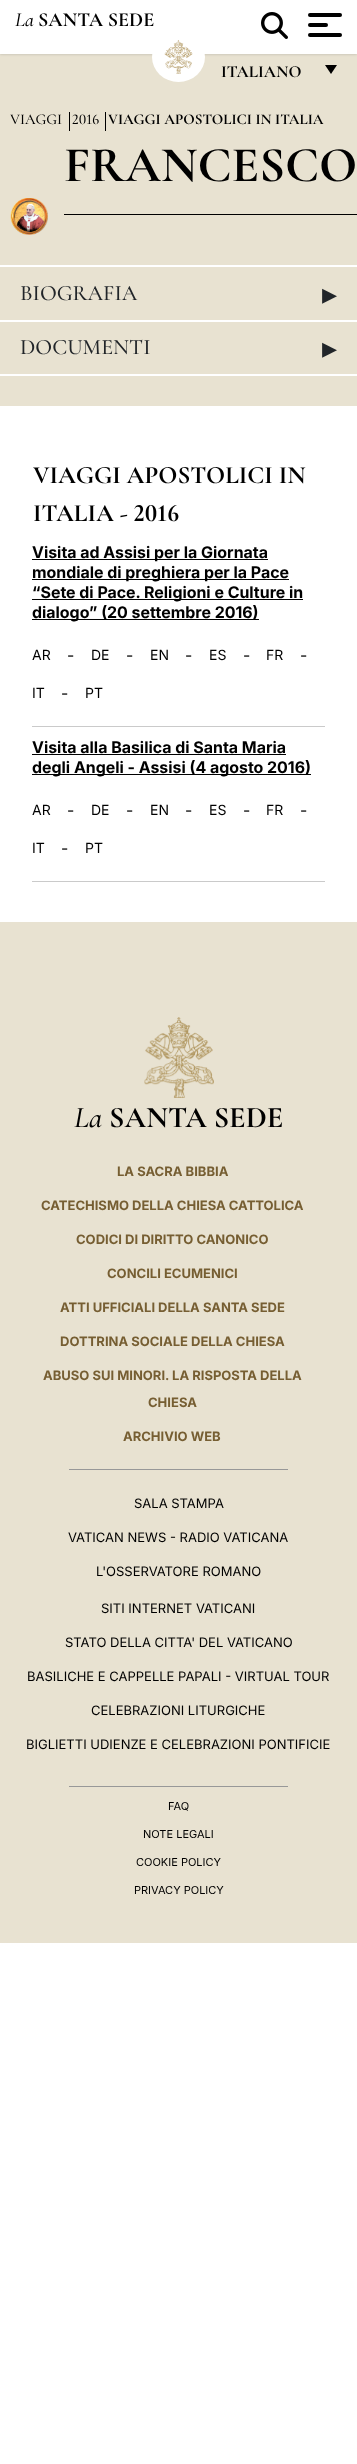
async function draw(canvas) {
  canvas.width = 357;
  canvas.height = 2464;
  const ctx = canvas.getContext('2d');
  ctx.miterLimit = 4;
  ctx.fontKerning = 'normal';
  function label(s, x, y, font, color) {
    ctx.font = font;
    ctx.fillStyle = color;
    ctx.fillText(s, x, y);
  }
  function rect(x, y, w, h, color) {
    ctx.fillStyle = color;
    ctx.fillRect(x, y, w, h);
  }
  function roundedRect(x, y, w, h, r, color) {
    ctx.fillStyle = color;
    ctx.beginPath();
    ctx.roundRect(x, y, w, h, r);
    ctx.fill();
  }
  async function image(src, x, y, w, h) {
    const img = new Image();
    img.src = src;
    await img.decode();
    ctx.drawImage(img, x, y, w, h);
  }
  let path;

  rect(0, 0, 357, 2464, '#fff');
  rect(0, 54, 357, 1889, '#e8e2d1');
  ctx.fillStyle = '#4949494f';
  ctx.filter = 'blur(1.5px)';
  ctx.beginPath();
  ctx.rect(0, 0, 357, 54);
  ctx.fill();
  ctx.filter = 'none';
  rect(0, 0, 357, 54, '#fff');
  label('La', 15, 26, 'italic 500 20px Cormorant Garamond', '#000');
  label('SANTA SEDE', 38, 26, 'bold 20px Cormorant Garamond', '#000');
  ctx.fillStyle = '#fff';
  ctx.beginPath();
  ctx.ellipse(178.5, 57, 26.5, 25, 0, 0, 2 * Math.PI);
  ctx.fill();
  await image('assets/img1.png', 164, 40, 29, 34);
  await image('assets/img2.png', 261, 12, 27, 27);
  roundedRect(308, 13, 34, 4, 2, '#000');
  roundedRect(308, 23, 20, 4, 2, '#000');
  roundedRect(308, 33, 34, 4, 2, '#000');
  label('ITALIANO', 221, 77, 'bold 17px Cormorant Garamond', '#000');
  path = new Path2D('M325 65H337L331 74Z');
  ctx.fill(path);
  label('VIAGGI', 10, 124, '500 15px Cormorant Garamond', '#000');
  rect(69, 112, 1, 19, '#000');
  label('2016', 72, 124, '500 15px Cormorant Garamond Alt', '#000');
  rect(105, 112, 1, 19, '#000');
  label('VIAGGI APOSTOLICI IN ITALIA', 108, 124, 'bold 15px Cormorant Garamond', '#000');
  label('FRANCESCO', 64, 181, 'bold 50px Cormorant Garamond', '#000');
  rect(64, 214, 293, 1, '#000');
  await image('assets/img3.png', 10, 198, 38, 37);
  rect(0, 265, 357, 2, '#fff');
  rect(0, 320, 357, 2, '#fff');
  label('BIOGRAFIA', 20, 300, '500 22px Cormorant Garamond', '#212529');
  label('▸', 322, 304, '30px DejaVu Sans', '#212529');
  rect(0, 374, 357, 2, '#fff');
  label('DOCUMENTI', 20, 354, '500 22px Cormorant Garamond', '#212529');
  label('▸', 322, 358, '30px DejaVu Sans', '#212529');
  rect(0, 406, 357, 516, '#fff');
  label('VIAGGI APOSTOLICI IN', 33, 483, 'bold 25px Cormorant Garamond', '#000');
  label('ITALIA - 2016', 33, 521, 'bold 25px Cormorant Garamond Alt', '#000');
  rect(32, 726, 293, 1, '#cacaca');
  rect(32, 559, 236, 1, '#000');
  label('Visita ad Assisi per la Giornata', 32, 558, 'bold 16px Inter', '#000');
  rect(32, 579, 257, 1, '#000');
  label('mondiale di preghiera per la Pace', 32, 578, 'bold 16px Inter', '#000');
  rect(32, 599, 271, 1, '#000');
  label('“Sete di Pace. Religioni e Culture in', 32, 598, 'bold 16px Inter', '#000');
  rect(32, 619, 227, 1, '#000');
  label('dialogo” (20 settembre 2016)', 32, 618, 'bold 16px Inter', '#000');
  label('AR', 32, 660, '14px Inter', '#000');
  label('-', 67, 661, '16px "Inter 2"', '#000');
  label('DE', 91, 660, '14px Inter', '#000');
  label('-', 126, 661, '16px "Inter 2"', '#000');
  label('EN', 150, 660, '14px Inter', '#000');
  label('-', 185, 661, '16px "Inter 2"', '#000');
  label('ES', 209, 660, '14px Inter', '#000');
  label('-', 243, 661, '16px "Inter 2"', '#000');
  label('FR', 266, 660, '14px Inter', '#000');
  label('-', 300, 661, '16px "Inter 2"', '#000');
  label('IT', 32, 698, '14px Inter', '#000');
  label('-', 61, 699, '16px "Inter 2"', '#000');
  label('PT', 85, 698, '14px Inter', '#000');
  rect(32, 881, 293, 1, '#cacaca');
  label('Visita alla Basilica di Santa Maria', 32, 753, 'bold 16px Inter', '#000');
  rect(32, 754, 254, 1, '#000');
  rect(32, 774, 279, 1, '#000');
  label('degli Angeli - Assisi (4 agosto 2016)', 32, 773, 'bold 16px Inter', '#000');
  label('AR', 32, 815, '14px Inter', '#000');
  label('-', 67, 816, '16px "Inter 2"', '#000');
  label('DE', 91, 815, '14px Inter', '#000');
  label('-', 126, 816, '16px "Inter 2"', '#000');
  label('EN', 150, 815, '14px Inter', '#000');
  label('-', 185, 816, '16px "Inter 2"', '#000');
  label('ES', 209, 815, '14px Inter', '#000');
  label('-', 243, 816, '16px "Inter 2"', '#000');
  label('FR', 266, 815, '14px Inter', '#000');
  label('-', 300, 816, '16px "Inter 2"', '#000');
  label('IT', 32, 853, '14px Inter', '#000');
  label('-', 61, 854, '16px "Inter 2"', '#000');
  label('PT', 85, 853, '14px Inter', '#000');
  await image('assets/img4.png', 144, 1017, 70, 81);
  label('La', 74, 1127, 'italic 500 30px Cormorant Garamond', '#000');
  label('SANTA SEDE', 109, 1127, 'bold 30px Cormorant Garamond', '#000');
  label('LA SACRA BIBBIA', 117, 1176, 'bold 13px "Inter 2"', '#765e32');
  label('CATECHISMO DELLA CHIESA CATTOLICA', 41, 1210, 'bold 13px "Inter 2"', '#765e32');
  label('CODICI DI DIRITTO CANONICO', 76, 1244, 'bold 13px "Inter 2"', '#765e32');
  label('CONCILI ECUMENICI', 107, 1278, 'bold 13px "Inter 2"', '#765e32');
  label('ATTI UFFICIALI DELLA SANTA SEDE', 60, 1312, 'bold 13px "Inter 2"', '#765e32');
  label('DOTTRINA SOCIALE DELLA CHIESA', 60, 1346, 'bold 13px "Inter 2"', '#765e32');
  label('ABUSO SUI MINORI. LA RISPOSTA DELLA', 43, 1380, 'bold 13px "Inter 2"', '#765e32');
  label('CHIESA', 148, 1407, 'bold 13px "Inter 2"', '#765e32');
  label('ARCHIVIO WEB', 123, 1441, 'bold 13px "Inter 2"', '#765e32');
  rect(69, 1469, 219, 1, '#989898');
  label('SALA STAMPA', 134, 1508, '13px Inter', '#000');
  label('VATICAN NEWS - RADIO VATICANA', 68, 1542, '13px Inter', '#000');
  label('L\'OSSERVATORE ROMANO', 96, 1576, '13px Inter', '#000');
  label('SITI INTERNET VATICANI', 101, 1613, '13px Inter', '#000');
  label('STATO DELLA CITTA\' DEL VATICANO', 65, 1647, '13px Inter', '#000');
  label('BASILICHE E CAPPELLE PAPALI - VIRTUAL TOUR', 27, 1681, '13px Inter', '#000');
  label('CELEBRAZIONI LITURGICHE', 91, 1715, '13px Inter', '#000');
  label('BIGLIETTI UDIENZE E CELEBRAZIONI PONTIFICIE', 26, 1749, '13px Inter', '#000');
  rect(69, 1786, 219, 1, '#989898');
  label('FAQ', 168, 1810, '11px Inter', '#000');
  label('NOTE LEGALI', 143, 1838, '11px Inter', '#000');
  label('COOKIE POLICY', 136, 1866, '11px Inter', '#000');
  label('PRIVACY POLICY', 134, 1894, '11px Inter', '#000');
}

draw(document.querySelector('canvas'));
